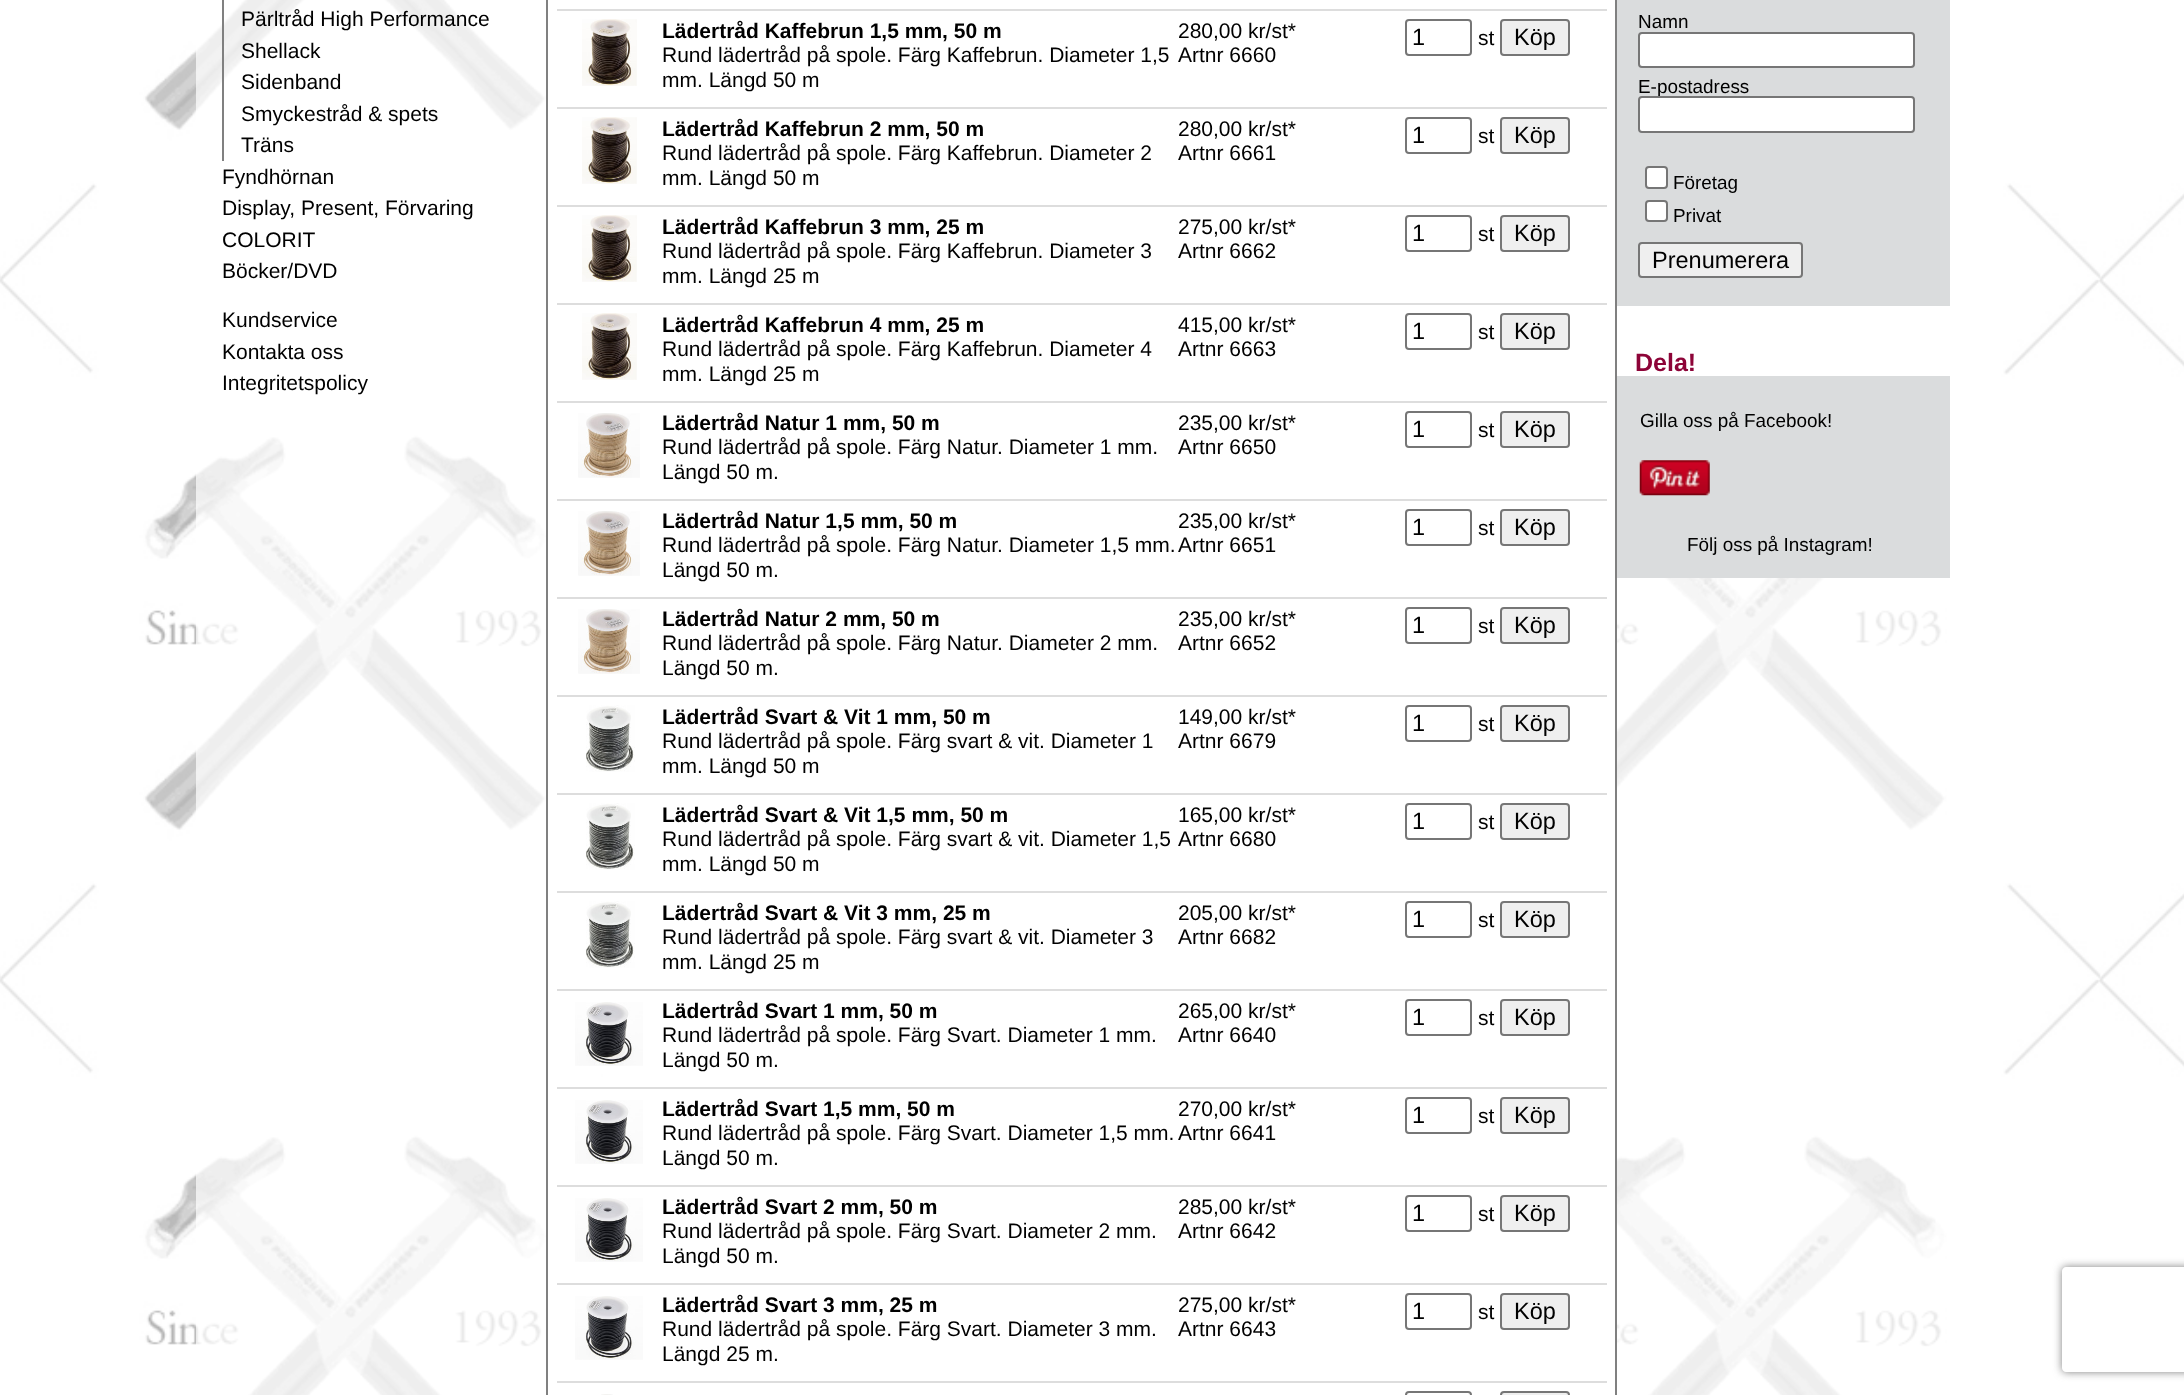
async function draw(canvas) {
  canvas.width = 2184;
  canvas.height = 1395;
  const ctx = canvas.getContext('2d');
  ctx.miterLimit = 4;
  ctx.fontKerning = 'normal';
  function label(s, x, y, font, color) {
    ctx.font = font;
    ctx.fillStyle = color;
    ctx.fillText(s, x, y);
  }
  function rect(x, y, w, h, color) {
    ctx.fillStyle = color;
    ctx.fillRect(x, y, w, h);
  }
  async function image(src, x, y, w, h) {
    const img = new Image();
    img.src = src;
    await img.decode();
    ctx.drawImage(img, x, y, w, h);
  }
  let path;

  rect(0, 0, 2184, 1395, '#fff');
  await image('assets/img1.png', 0, 0, 2184, 1395);
  rect(196, 0, 349, 1395, '#ffffffb3');
  rect(222, 0, 2, 161, '#808080');
  label('Pärltråd High Performance', 241, 26, '21px Liberation Sans', '#000');
  label('Shellack', 241, 58, '21px Liberation Sans', '#000');
  label('Sidenband', 241, 89, '21px Liberation Sans', '#000');
  label('Smyckestråd & spets', 241, 121, '21px Liberation Sans', '#000');
  label('Träns', 241, 152, '21px Liberation Sans', '#000');
  label('Fyndhörnan', 222, 184, '21px Liberation Sans', '#000');
  label('Display, Present, Förvaring', 222, 215, '21px Liberation Sans', '#000');
  label('COLORIT', 222, 247, '21px Liberation Sans', '#000');
  label('Böcker/DVD', 222, 278, '21px Liberation Sans', '#000');
  label('Kundservice', 222, 327, '21px Liberation Sans', '#000');
  label('Kontakta oss', 222, 359, '21px Liberation Sans', '#000');
  label('Integritetspolicy', 222, 390, '21px Liberation Sans', '#000');
  rect(603, 0, 1012, 1395, '#fff');
  rect(1615, 0, 2, 1395, '#808080');
  rect(546, 0, 2, 1395, '#808080');
  rect(557, 9, 1050, 2, '#ddd');
  rect(557, 107, 1050, 2, '#ddd');
  await image('assets/img2.png', 582, 19, 55, 67);
  label('Lädertråd Kaffebrun 1,5 mm, 50 m', 662, 38, 'bold 21px Liberation Sans', '#000');
  label('Rund lädertråd på spole. Färg Kaffebrun. Diameter 1,5', 662, 62, '21px Liberation Sans', '#000');
  label('mm. Längd 50 m', 662, 87, '21px Liberation Sans', '#000');
  label('280,00 kr/st*', 1178, 38, '21px Liberation Sans', '#000');
  label('Artnr 6660', 1178, 62, '21px Liberation Sans', '#000');
  ctx.beginPath();
  ctx.roundRect(1406, 20, 65, 35, 3);
  ctx.strokeStyle = '#767676';
  ctx.lineWidth = 2;
  ctx.stroke();
  label('1', 1412, 45, '23.5px Liberation Sans', '#000');
  label('st', 1478, 45, '21px Liberation Sans', '#000');
  ctx.fillStyle = '#efefef';
  ctx.beginPath();
  ctx.roundRect(1501, 20, 68, 35, 3);
  ctx.fill();
  ctx.stroke();
  label('Köp', 1514, 45, '23.5px Liberation Sans', '#000');
  rect(557, 205, 1050, 2, '#ddd');
  await image('assets/img3.png', 582, 117, 55, 67);
  label('Lädertråd Kaffebrun 2 mm, 50 m', 662, 136, 'bold 21px Liberation Sans', '#000');
  label('Rund lädertråd på spole. Färg Kaffebrun. Diameter 2', 662, 160, '21px Liberation Sans', '#000');
  label('mm. Längd 50 m', 662, 185, '21px Liberation Sans', '#000');
  label('280,00 kr/st*', 1178, 136, '21px Liberation Sans', '#000');
  label('Artnr 6661', 1178, 160, '21px Liberation Sans', '#000');
  ctx.beginPath();
  ctx.roundRect(1406, 118, 65, 35, 3);
  ctx.stroke();
  label('1', 1412, 143, '23.5px Liberation Sans', '#000');
  label('st', 1478, 143, '21px Liberation Sans', '#000');
  ctx.fillStyle = '#efefef';
  ctx.beginPath();
  ctx.roundRect(1501, 118, 68, 35, 3);
  ctx.fill();
  ctx.stroke();
  label('Köp', 1514, 143, '23.5px Liberation Sans', '#000');
  rect(557, 303, 1050, 2, '#ddd');
  await image('assets/img3.png', 582, 215, 55, 67);
  label('Lädertråd Kaffebrun 3 mm, 25 m', 662, 234, 'bold 21px Liberation Sans', '#000');
  label('Rund lädertråd på spole. Färg Kaffebrun. Diameter 3', 662, 258, '21px Liberation Sans', '#000');
  label('mm. Längd 25 m', 662, 283, '21px Liberation Sans', '#000');
  label('275,00 kr/st*', 1178, 234, '21px Liberation Sans', '#000');
  label('Artnr 6662', 1178, 258, '21px Liberation Sans', '#000');
  ctx.beginPath();
  ctx.roundRect(1406, 216, 65, 35, 3);
  ctx.stroke();
  label('1', 1412, 241, '23.5px Liberation Sans', '#000');
  label('st', 1478, 241, '21px Liberation Sans', '#000');
  ctx.fillStyle = '#efefef';
  ctx.beginPath();
  ctx.roundRect(1501, 216, 68, 35, 3);
  ctx.fill();
  ctx.stroke();
  label('Köp', 1514, 241, '23.5px Liberation Sans', '#000');
  rect(557, 401, 1050, 2, '#ddd');
  await image('assets/img2.png', 582, 313, 55, 67);
  label('Lädertråd Kaffebrun 4 mm, 25 m', 662, 332, 'bold 21px Liberation Sans', '#000');
  label('Rund lädertråd på spole. Färg Kaffebrun. Diameter 4', 662, 356, '21px Liberation Sans', '#000');
  label('mm. Längd 25 m', 662, 381, '21px Liberation Sans', '#000');
  label('415,00 kr/st*', 1178, 332, '21px Liberation Sans', '#000');
  label('Artnr 6663', 1178, 356, '21px Liberation Sans', '#000');
  ctx.beginPath();
  ctx.roundRect(1406, 314, 65, 35, 3);
  ctx.stroke();
  label('1', 1412, 339, '23.5px Liberation Sans', '#000');
  label('st', 1478, 339, '21px Liberation Sans', '#000');
  ctx.fillStyle = '#efefef';
  ctx.beginPath();
  ctx.roundRect(1501, 314, 68, 35, 3);
  ctx.fill();
  ctx.stroke();
  label('Köp', 1514, 339, '23.5px Liberation Sans', '#000');
  rect(557, 499, 1050, 2, '#ddd');
  await image('assets/img4.png', 578, 413, 62, 65);
  label('Lädertråd Natur 1 mm, 50 m', 662, 430, 'bold 21px Liberation Sans', '#000');
  label('Rund lädertråd på spole. Färg Natur. Diameter 1 mm.', 662, 454, '21px Liberation Sans', '#000');
  label('Längd 50 m.', 662, 479, '21px Liberation Sans', '#000');
  label('235,00 kr/st*', 1178, 430, '21px Liberation Sans', '#000');
  label('Artnr 6650', 1178, 454, '21px Liberation Sans', '#000');
  ctx.beginPath();
  ctx.roundRect(1406, 412, 65, 35, 3);
  ctx.stroke();
  label('1', 1412, 437, '23.5px Liberation Sans', '#000');
  label('st', 1478, 437, '21px Liberation Sans', '#000');
  ctx.fillStyle = '#efefef';
  ctx.beginPath();
  ctx.roundRect(1501, 412, 68, 35, 3);
  ctx.fill();
  ctx.stroke();
  label('Köp', 1514, 437, '23.5px Liberation Sans', '#000');
  rect(557, 597, 1050, 2, '#ddd');
  await image('assets/img4.png', 578, 511, 62, 65);
  label('Lädertråd Natur 1,5 mm, 50 m', 662, 528, 'bold 21px Liberation Sans', '#000');
  label('Rund lädertråd på spole. Färg Natur. Diameter 1,5 mm.', 662, 552, '21px Liberation Sans', '#000');
  label('Längd 50 m.', 662, 577, '21px Liberation Sans', '#000');
  label('235,00 kr/st*', 1178, 528, '21px Liberation Sans', '#000');
  label('Artnr 6651', 1178, 552, '21px Liberation Sans', '#000');
  ctx.beginPath();
  ctx.roundRect(1406, 510, 65, 35, 3);
  ctx.stroke();
  label('1', 1412, 535, '23.5px Liberation Sans', '#000');
  label('st', 1478, 535, '21px Liberation Sans', '#000');
  ctx.fillStyle = '#efefef';
  ctx.beginPath();
  ctx.roundRect(1501, 510, 68, 35, 3);
  ctx.fill();
  ctx.stroke();
  label('Köp', 1514, 535, '23.5px Liberation Sans', '#000');
  rect(557, 695, 1050, 2, '#ddd');
  await image('assets/img4.png', 578, 609, 62, 65);
  label('Lädertråd Natur 2 mm, 50 m', 662, 626, 'bold 21px Liberation Sans', '#000');
  label('Rund lädertråd på spole. Färg Natur. Diameter 2 mm.', 662, 650, '21px Liberation Sans', '#000');
  label('Längd 50 m.', 662, 675, '21px Liberation Sans', '#000');
  label('235,00 kr/st*', 1178, 626, '21px Liberation Sans', '#000');
  label('Artnr 6652', 1178, 650, '21px Liberation Sans', '#000');
  ctx.beginPath();
  ctx.roundRect(1406, 608, 65, 35, 3);
  ctx.stroke();
  label('1', 1412, 633, '23.5px Liberation Sans', '#000');
  label('st', 1478, 633, '21px Liberation Sans', '#000');
  ctx.fillStyle = '#efefef';
  ctx.beginPath();
  ctx.roundRect(1501, 608, 68, 35, 3);
  ctx.fill();
  ctx.stroke();
  label('Köp', 1514, 633, '23.5px Liberation Sans', '#000');
  rect(557, 793, 1050, 2, '#ddd');
  await image('assets/img5.png', 586, 705, 49, 67);
  label('Lädertråd Svart & Vit 1 mm, 50 m', 662, 724, 'bold 21px Liberation Sans', '#000');
  label('Rund lädertråd på spole. Färg svart & vit. Diameter 1', 662, 748, '21px Liberation Sans', '#000');
  label('mm. Längd 50 m', 662, 773, '21px Liberation Sans', '#000');
  label('149,00 kr/st*', 1178, 724, '21px Liberation Sans', '#000');
  label('Artnr 6679', 1178, 748, '21px Liberation Sans', '#000');
  ctx.beginPath();
  ctx.roundRect(1406, 706, 65, 35, 3);
  ctx.stroke();
  label('1', 1412, 731, '23.5px Liberation Sans', '#000');
  label('st', 1478, 731, '21px Liberation Sans', '#000');
  ctx.fillStyle = '#efefef';
  ctx.beginPath();
  ctx.roundRect(1501, 706, 68, 35, 3);
  ctx.fill();
  ctx.stroke();
  label('Köp', 1514, 731, '23.5px Liberation Sans', '#000');
  rect(557, 891, 1050, 2, '#ddd');
  await image('assets/img6.png', 586, 803, 49, 67);
  label('Lädertråd Svart & Vit 1,5 mm, 50 m', 662, 822, 'bold 21px Liberation Sans', '#000');
  label('Rund lädertråd på spole. Färg svart & vit. Diameter 1,5', 662, 846, '21px Liberation Sans', '#000');
  label('mm. Längd 50 m', 662, 871, '21px Liberation Sans', '#000');
  label('165,00 kr/st*', 1178, 822, '21px Liberation Sans', '#000');
  label('Artnr 6680', 1178, 846, '21px Liberation Sans', '#000');
  ctx.beginPath();
  ctx.roundRect(1406, 804, 65, 35, 3);
  ctx.stroke();
  label('1', 1412, 829, '23.5px Liberation Sans', '#000');
  label('st', 1478, 829, '21px Liberation Sans', '#000');
  ctx.fillStyle = '#efefef';
  ctx.beginPath();
  ctx.roundRect(1501, 804, 68, 35, 3);
  ctx.fill();
  ctx.stroke();
  label('Köp', 1514, 829, '23.5px Liberation Sans', '#000');
  rect(557, 989, 1050, 2, '#ddd');
  await image('assets/img5.png', 586, 901, 49, 67);
  label('Lädertråd Svart & Vit 3 mm, 25 m', 662, 920, 'bold 21px Liberation Sans', '#000');
  label('Rund lädertråd på spole. Färg svart & vit. Diameter 3', 662, 944, '21px Liberation Sans', '#000');
  label('mm. Längd 25 m', 662, 969, '21px Liberation Sans', '#000');
  label('205,00 kr/st*', 1178, 920, '21px Liberation Sans', '#000');
  label('Artnr 6682', 1178, 944, '21px Liberation Sans', '#000');
  ctx.beginPath();
  ctx.roundRect(1406, 902, 65, 35, 3);
  ctx.stroke();
  label('1', 1412, 927, '23.5px Liberation Sans', '#000');
  label('st', 1478, 927, '21px Liberation Sans', '#000');
  ctx.fillStyle = '#efefef';
  ctx.beginPath();
  ctx.roundRect(1501, 902, 68, 35, 3);
  ctx.fill();
  ctx.stroke();
  label('Köp', 1514, 927, '23.5px Liberation Sans', '#000');
  rect(557, 1087, 1050, 2, '#ddd');
  await image('assets/img7.png', 575, 1002, 68, 64);
  label('Lädertråd Svart 1 mm, 50 m', 662, 1018, 'bold 21px Liberation Sans', '#000');
  label('Rund lädertråd på spole. Färg Svart. Diameter 1 mm.', 662, 1042, '21px Liberation Sans', '#000');
  label('Längd 50 m.', 662, 1067, '21px Liberation Sans', '#000');
  label('265,00 kr/st*', 1178, 1018, '21px Liberation Sans', '#000');
  label('Artnr 6640', 1178, 1042, '21px Liberation Sans', '#000');
  ctx.beginPath();
  ctx.roundRect(1406, 1000, 65, 35, 3);
  ctx.stroke();
  label('1', 1412, 1025, '23.5px Liberation Sans', '#000');
  label('st', 1478, 1025, '21px Liberation Sans', '#000');
  ctx.fillStyle = '#efefef';
  ctx.beginPath();
  ctx.roundRect(1501, 1000, 68, 35, 3);
  ctx.fill();
  ctx.stroke();
  label('Köp', 1514, 1025, '23.5px Liberation Sans', '#000');
  rect(557, 1185, 1050, 2, '#ddd');
  await image('assets/img7.png', 575, 1100, 68, 64);
  label('Lädertråd Svart 1,5 mm, 50 m', 662, 1116, 'bold 21px Liberation Sans', '#000');
  label('Rund lädertråd på spole. Färg Svart. Diameter 1,5 mm.', 662, 1140, '21px Liberation Sans', '#000');
  label('Längd 50 m.', 662, 1165, '21px Liberation Sans', '#000');
  label('270,00 kr/st*', 1178, 1116, '21px Liberation Sans', '#000');
  label('Artnr 6641', 1178, 1140, '21px Liberation Sans', '#000');
  ctx.beginPath();
  ctx.roundRect(1406, 1098, 65, 35, 3);
  ctx.stroke();
  label('1', 1412, 1123, '23.5px Liberation Sans', '#000');
  label('st', 1478, 1123, '21px Liberation Sans', '#000');
  ctx.fillStyle = '#efefef';
  ctx.beginPath();
  ctx.roundRect(1501, 1098, 68, 35, 3);
  ctx.fill();
  ctx.stroke();
  label('Köp', 1514, 1123, '23.5px Liberation Sans', '#000');
  rect(557, 1283, 1050, 2, '#ddd');
  await image('assets/img7.png', 575, 1198, 68, 64);
  label('Lädertråd Svart 2 mm, 50 m', 662, 1214, 'bold 21px Liberation Sans', '#000');
  label('Rund lädertråd på spole. Färg Svart. Diameter 2 mm.', 662, 1238, '21px Liberation Sans', '#000');
  label('Längd 50 m.', 662, 1263, '21px Liberation Sans', '#000');
  label('285,00 kr/st*', 1178, 1214, '21px Liberation Sans', '#000');
  label('Artnr 6642', 1178, 1238, '21px Liberation Sans', '#000');
  ctx.beginPath();
  ctx.roundRect(1406, 1196, 65, 35, 3);
  ctx.stroke();
  label('1', 1412, 1221, '23.5px Liberation Sans', '#000');
  label('st', 1478, 1221, '21px Liberation Sans', '#000');
  ctx.fillStyle = '#efefef';
  ctx.beginPath();
  ctx.roundRect(1501, 1196, 68, 35, 3);
  ctx.fill();
  ctx.stroke();
  label('Köp', 1514, 1221, '23.5px Liberation Sans', '#000');
  rect(557, 1381, 1050, 2, '#ddd');
  await image('assets/img7.png', 575, 1296, 68, 64);
  label('Lädertråd Svart 3 mm, 25 m', 662, 1312, 'bold 21px Liberation Sans', '#000');
  label('Rund lädertråd på spole. Färg Svart. Diameter 3 mm.', 662, 1336, '21px Liberation Sans', '#000');
  label('Längd 25 m.', 662, 1361, '21px Liberation Sans', '#000');
  label('275,00 kr/st*', 1178, 1312, '21px Liberation Sans', '#000');
  label('Artnr 6643', 1178, 1336, '21px Liberation Sans', '#000');
  ctx.beginPath();
  ctx.roundRect(1406, 1294, 65, 35, 3);
  ctx.stroke();
  label('1', 1412, 1319, '23.5px Liberation Sans', '#000');
  label('st', 1478, 1319, '21px Liberation Sans', '#000');
  ctx.fillStyle = '#efefef';
  ctx.beginPath();
  ctx.roundRect(1501, 1294, 68, 35, 3);
  ctx.fill();
  ctx.stroke();
  label('Köp', 1514, 1319, '23.5px Liberation Sans', '#000');
  await image('assets/img8.png', 601, 1394, 12, 1);
  ctx.beginPath();
  ctx.roundRect(1406, 1392, 65, 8, 3);
  ctx.stroke();
  ctx.fillStyle = '#efefef';
  ctx.beginPath();
  ctx.roundRect(1501, 1392, 68, 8, 3);
  ctx.fill();
  ctx.stroke();
  rect(1617, 435, 328, 960, '#ffffffb3');
  rect(1617, 0, 333, 306, '#dadcdd');
  label('Namn', 1638, 28, '18.9px Liberation Sans', '#000');
  ctx.fillStyle = '#fff';
  ctx.beginPath();
  ctx.roundRect(1639, 33, 275, 34, 3);
  ctx.fill();
  ctx.stroke();
  label('E-postadress', 1638, 93, '18.9px Liberation Sans', '#000');
  ctx.fillStyle = '#fff';
  ctx.beginPath();
  ctx.roundRect(1639, 97, 275, 35, 3);
  ctx.fill();
  ctx.stroke();
  ctx.beginPath();
  ctx.roundRect(1646, 167, 21, 21, 3);
  ctx.fill();
  ctx.stroke();
  label('Företag', 1673, 189, '18.9px Liberation Sans', '#000');
  ctx.fillStyle = '#fff';
  ctx.beginPath();
  ctx.roundRect(1646, 201, 21, 20, 3);
  ctx.fill();
  ctx.stroke();
  label('Privat', 1673, 222, '18.9px Liberation Sans', '#000');
  ctx.fillStyle = '#efefef';
  ctx.beginPath();
  ctx.roundRect(1639, 243, 163, 34, 3);
  ctx.fill();
  ctx.stroke();
  label('Prenumerera', 1652, 268, '23.5px Liberation Sans', '#000');
  rect(1617, 376, 333, 202, '#dadcdd');
  label('Dela!', 1635, 371, 'bold 25px Liberation Sans', '#8d0438');
  label('Gilla oss på Facebook!', 1640, 427, '18.9px Liberation Sans', '#000');
  await image('assets/img9.png', 1639, 460, 71, 36);
  label('Följ oss på Instagram!', 1687, 551, '18.9px Liberation Sans', '#000');
  ctx.save();
  path = new Path2D('M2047 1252H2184V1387H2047ZM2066 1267H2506C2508 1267 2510 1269 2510 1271V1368C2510 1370 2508 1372 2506 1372H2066C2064 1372 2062 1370 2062 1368V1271C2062 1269 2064 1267 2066 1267Z');
  ctx.clip(path, 'evenodd');
  ctx.fillStyle = '#808080';
  ctx.filter = 'blur(4.5px)';
  ctx.beginPath();
  ctx.roundRect(2062, 1267, 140, 105, 4);
  ctx.fill();
  ctx.filter = 'none';
  ctx.restore();
}

draw(document.querySelector('canvas'));
